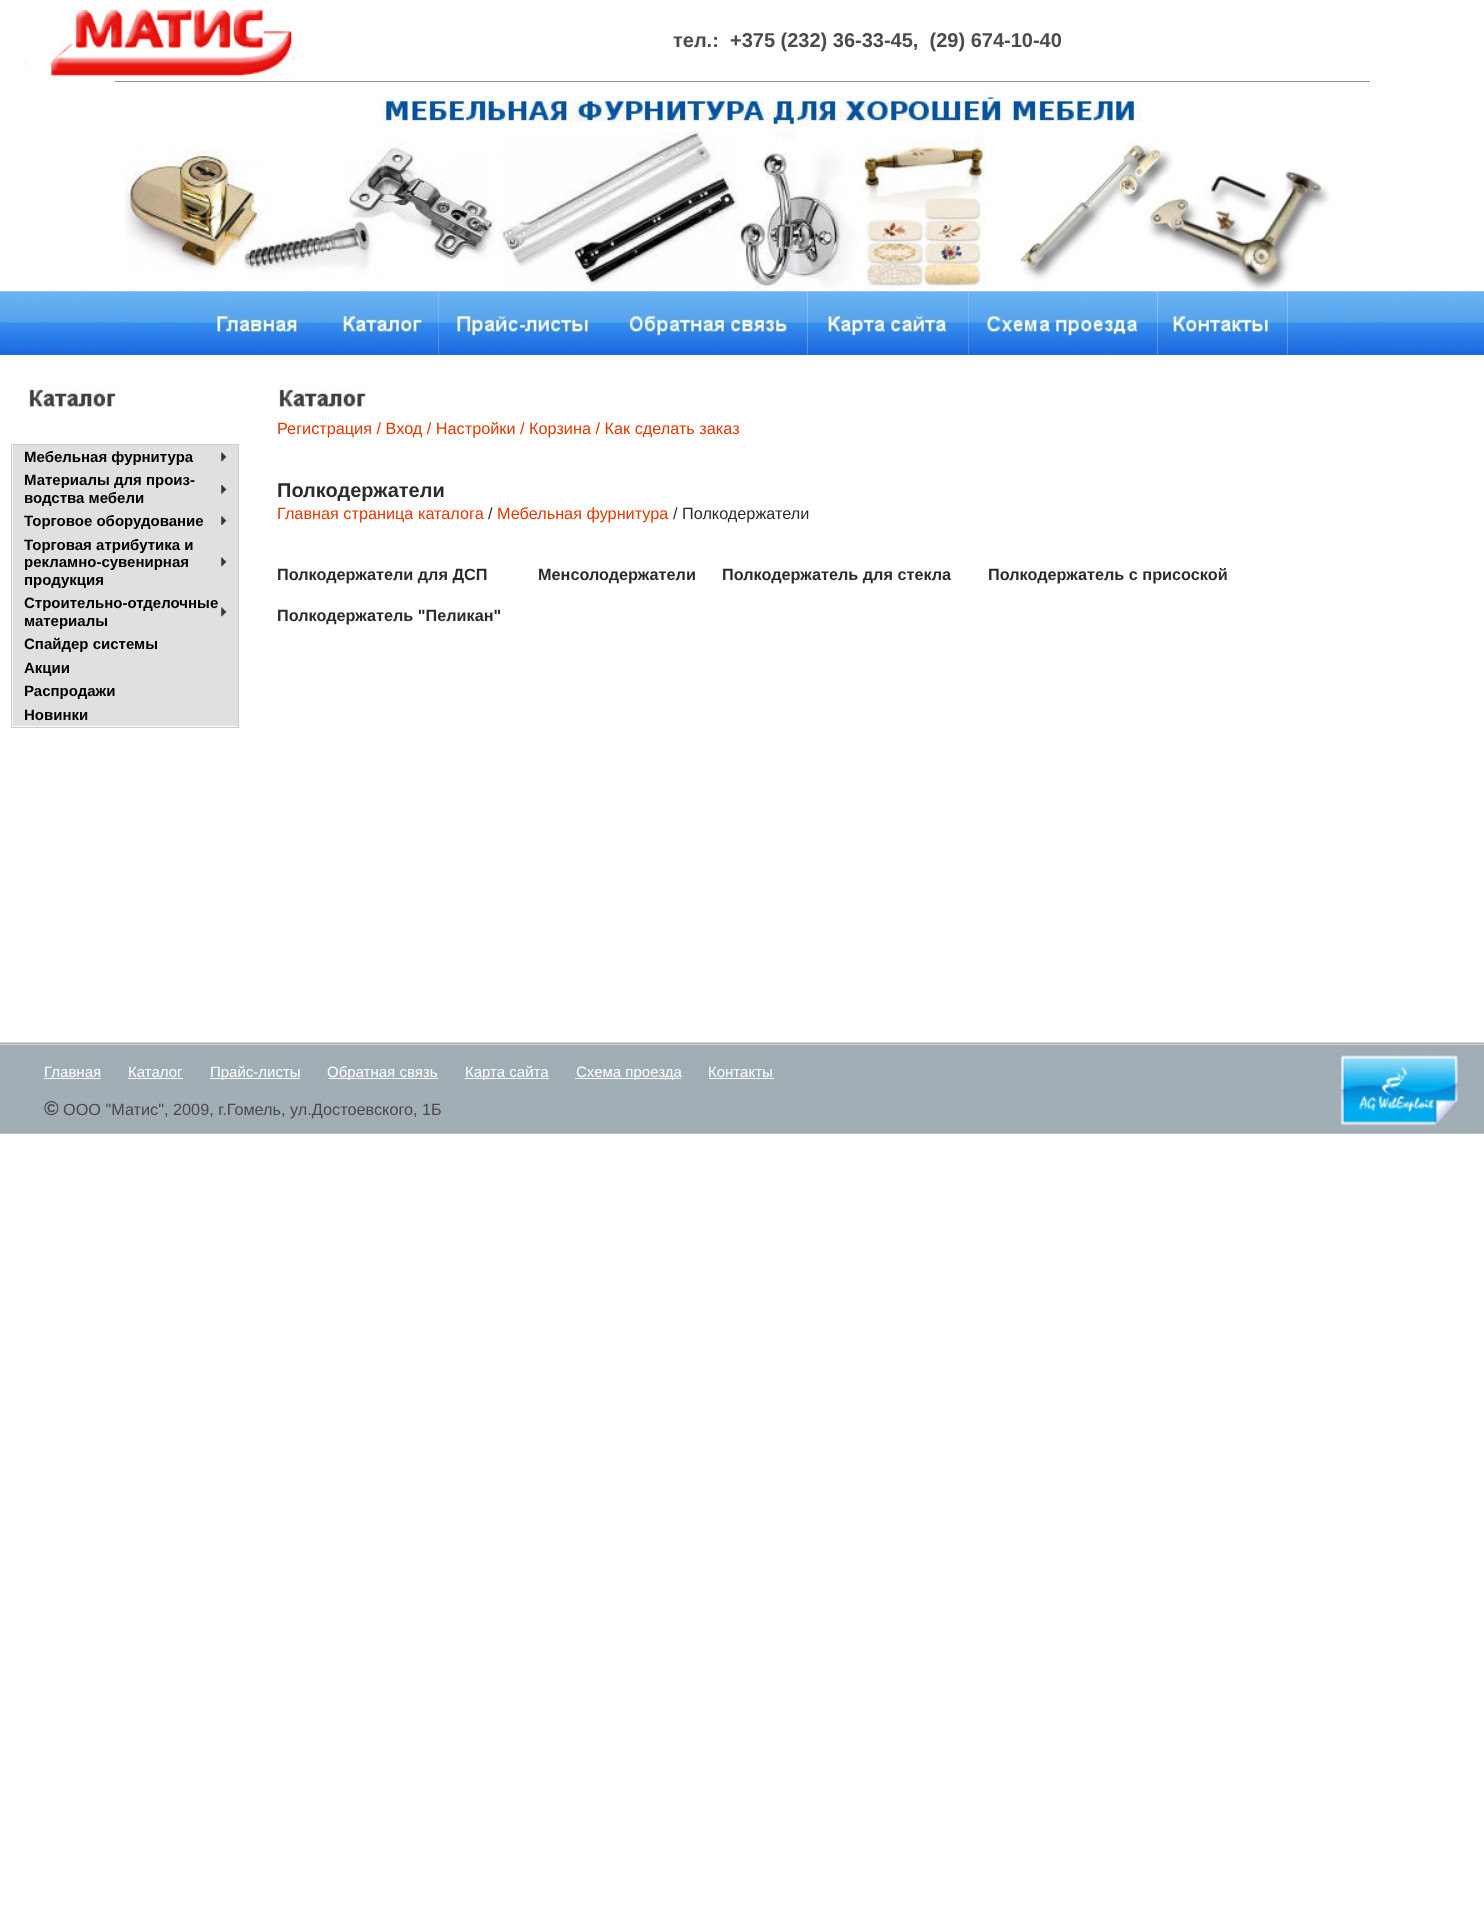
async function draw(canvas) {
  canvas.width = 1484;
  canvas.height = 1906;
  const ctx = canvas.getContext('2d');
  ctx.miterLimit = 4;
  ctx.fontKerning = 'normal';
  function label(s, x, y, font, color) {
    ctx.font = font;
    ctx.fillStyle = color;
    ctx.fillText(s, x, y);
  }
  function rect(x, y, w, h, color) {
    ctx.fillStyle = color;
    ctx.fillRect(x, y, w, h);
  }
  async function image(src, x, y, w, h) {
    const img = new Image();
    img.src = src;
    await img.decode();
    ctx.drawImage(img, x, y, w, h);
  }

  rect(0, 0, 1484, 1906, '#fff');
  await image('assets/img1.png', 25, 9, 275, 71);
  label('тел.:  +375 (232) 36-33-45,  (29) 674-10-40', 673, 47, 'bold 20px Liberation Sans', '#4e4a4a');
  rect(115, 81, 1255, 1, '#000');
  await image('assets/img2.png', 115, 81, 1255, 209);
  await image('assets/img3.png', 0, 291, 115, 64);
  await image('assets/img4.png', 115, 291, 80, 64);
  await image('assets/img5.png', 195, 291, 125, 64);
  await image('assets/img6.png', 320, 291, 119, 64);
  await image('assets/img7.png', 438, 291, 172, 64);
  await image('assets/img8.png', 610, 291, 198, 64);
  await image('assets/img9.png', 807, 291, 162, 64);
  await image('assets/img10.png', 968, 291, 190, 64);
  await image('assets/img11.png', 1157, 291, 131, 64);
  await image('assets/img12.png', 1287, 291, 83, 64);
  await image('assets/img13.png', 1370, 291, 114, 64);
  await image('assets/img14.png', 28, 388, 89, 19);
  ctx.strokeStyle = '#ccc';
  ctx.strokeRect(11.5, 444.5, 227, 283);
  rect(13, 445, 225, 281, '#dfe0e1');
  await image('assets/img15.png', 221, 452, 6, 10);
  label('Мебельная фурнитура', 24, 462, 'bold 15px Liberation Sans', '#000');
  await image('assets/img16.png', 221, 485, 6, 9);
  label('Материалы для произ-', 24, 485, 'bold 15px Liberation Sans', '#000');
  label('водства мебели', 24, 503, 'bold 15px Liberation Sans', '#000');
  await image('assets/img17.png', 221, 516, 6, 9);
  label('Торговое оборудование', 24, 526, 'bold 15px Liberation Sans', '#000');
  await image('assets/img15.png', 221, 557, 6, 10);
  label('Торговая атрибутика и', 24, 550, 'bold 15px Liberation Sans', '#000');
  label('рекламно-сувенирная', 24, 567, 'bold 15px Liberation Sans', '#000');
  label('продукция', 24, 585, 'bold 15px Liberation Sans', '#000');
  await image('assets/img15.png', 221, 607, 6, 10);
  label('Строительно-отделочные', 24, 608, 'bold 15px Liberation Sans', '#000');
  label('материалы', 24, 626, 'bold 15px Liberation Sans', '#000');
  label('Спайдер системы', 24, 649, 'bold 15px Liberation Sans', '#000');
  label('Акции', 24, 673, 'bold 15px Liberation Sans', '#000');
  label('Распродажи', 24, 696, 'bold 15px Liberation Sans', '#000');
  label('Новинки', 24, 720, 'bold 15px Liberation Sans', '#000');
  await image('assets/img18.png', 278, 388, 89, 19);
  label('Регистрация / Вход / Настройки / Корзина / Как сделать заказ', 277, 434, '16.25px Liberation Sans', '#e13800');
  label('Полкодержатели', 277, 497, 'bold 20px Liberation Sans', '#2b2b2b');
  label('Главная страница каталога', 277, 519, '16.25px Liberation Sans', '#e13800');
  label('/', 488, 519, '16.25px Liberation Sans', '#2b2b2b');
  label('Мебельная фурнитура', 497, 519, '16.25px Liberation Sans', '#e13800');
  label('/ Полкодержатели', 673, 519, '16.25px Liberation Sans', '#2b2b2b');
  label('Полкодержатели для ДСП', 277, 580, 'bold 16.25px Liberation Sans', '#2b2b2b');
  label('Менсолодержатели', 538, 580, 'bold 16.25px Liberation Sans', '#2b2b2b');
  label('Полкодержатель для стекла', 722, 580, 'bold 16.25px Liberation Sans', '#2b2b2b');
  label('Полкодержатель с присоской', 988, 580, 'bold 16.25px Liberation Sans', '#2b2b2b');
  label('Полкодержатель "Пеликан"', 277, 621, 'bold 16.25px Liberation Sans', '#2b2b2b');
  await image('assets/img19.png', 0, 1042, 1484, 92);
  label('Главная', 44, 1077, '15px Liberation Sans', '#fff');
  rect(44, 1078, 57, 1, '#fff');
  label('Каталог', 128, 1077, '15px Liberation Sans', '#fff');
  rect(128, 1078, 55, 1, '#fff');
  rect(210, 1078, 90, 1, '#fff');
  label('Прайс-листы', 210, 1077, '15px Liberation Sans', '#fff');
  rect(328, 1078, 110, 1, '#fff');
  label('Обратная связь', 327, 1077, '15px Liberation Sans', '#fff');
  rect(465, 1078, 84, 1, '#fff');
  label('Карта сайта', 465, 1077, '15px Liberation Sans', '#fff');
  rect(575, 1078, 106, 1, '#fff');
  label('Схема проезда', 576, 1077, '15px Liberation Sans', '#fff');
  label('Контакты', 708, 1077, '15px Liberation Sans', '#fff');
  rect(709, 1078, 65, 1, '#fff');
  label('©', 44, 1115, 'bold 20px Liberation Sans', '#4e4a4a');
  label('ООО "Матис", 2009, г.Гомель, ул.Достоевского, 1Б', 63, 1115, '16.25px Liberation Sans', '#4e4a4a');
  await image('assets/img20.png', 1336, 1053, 126, 73);
}

draw(document.querySelector('canvas'));
